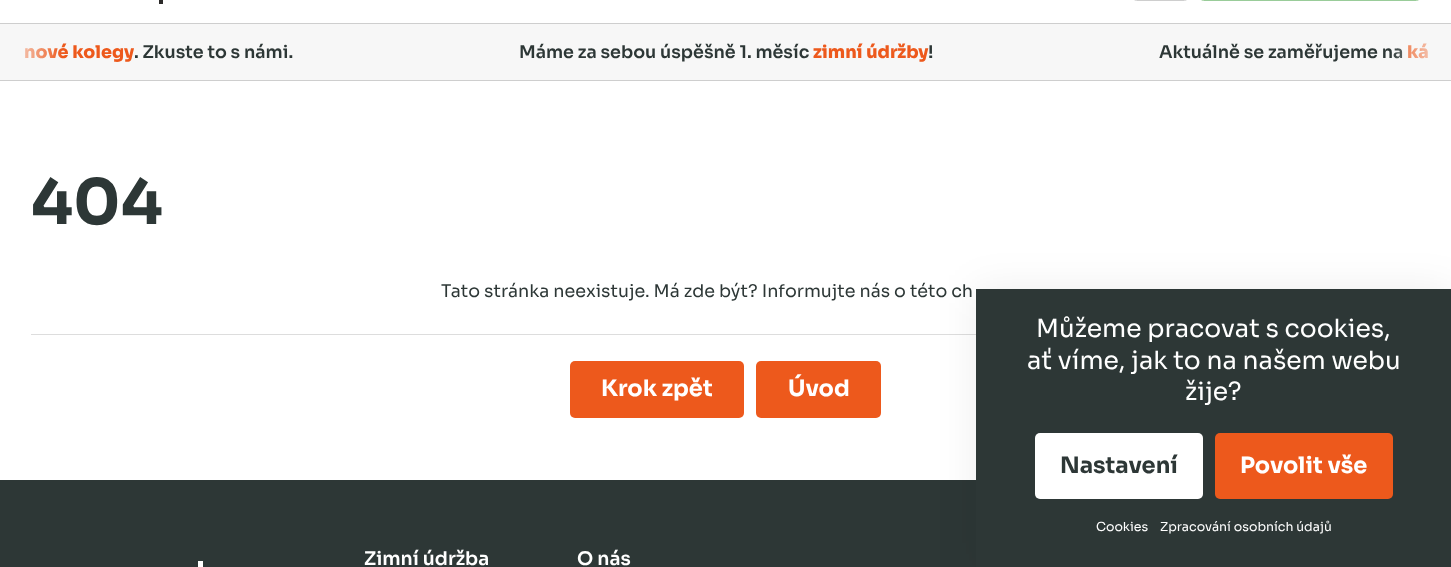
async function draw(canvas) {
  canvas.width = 1451;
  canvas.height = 567;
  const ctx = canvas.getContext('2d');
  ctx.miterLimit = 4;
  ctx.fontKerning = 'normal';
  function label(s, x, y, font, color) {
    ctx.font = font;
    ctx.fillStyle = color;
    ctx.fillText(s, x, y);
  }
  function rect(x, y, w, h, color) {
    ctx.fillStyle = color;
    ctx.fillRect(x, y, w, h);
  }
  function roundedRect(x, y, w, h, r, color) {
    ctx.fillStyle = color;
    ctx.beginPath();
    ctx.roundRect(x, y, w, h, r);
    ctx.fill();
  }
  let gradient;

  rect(0, 0, 1451, 567, '#fff');
  rect(0, 80, 1451, 1, '#cecece');
  ctx.beginPath();
  ctx.roundRect(1133.5, -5.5, 54, 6, 4.5);
  ctx.strokeStyle = '#cecece';
  ctx.stroke();
  ctx.beginPath();
  ctx.roundRect(1200.5, -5.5, 219, 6, 4.5);
  ctx.strokeStyle = '#9c9';
  ctx.stroke();
  rect(159, 0, 4, 4, '#2b2a29');
  rect(0, 24, 1451, 56, '#f7f7f7');
  rect(0, 23, 1451, 1, '#cecece');
  label('nové kolegy', 24, 58, '800 17.5px Sora', '#ed591c');
  label('. Zkuste to s námi.', 134, 58, '600 17.5px Sora', '#2d3736');
  label('Máme za sebou úspěšně 1. měsíc', 519, 58, '600 17.5px Sora', '#2d3736');
  label('zimní údržby', 813, 58, '800 17.5px Sora', '#ed591c');
  label('!', 928, 58, '600 17.5px Sora', '#2d3736');
  label('Aktuálně se zaměřujeme na', 1159, 58, '600 17.5px Sora', '#2d3736');
  label('ká', 1407, 58, '800 17.5px Sora', '#ed591c');
  gradient = ctx.createLinearGradient(0, 52, 63, 52);
  gradient.addColorStop(0, '#f7f7f7');
  gradient.addColorStop(1, '#f7f7f700');
  ctx.fillStyle = gradient;
  ctx.fillRect(25, 48, 37, 11);
  gradient = ctx.createLinearGradient(1389, 52, 1451, 52);
  gradient.addColorStop(0, '#f7f7f700');
  gradient.addColorStop(1, '#f7f7f7');
  ctx.fillStyle = gradient;
  ctx.fillRect(1390, 43, 38, 16);
  label('404', 31, 224, 'bold 62.5px Sora', '#2d3736');
  label('Tato stránka neexistuje. Má zde být? Informujte nás o této ch', 441, 297, '17.5px Sora', '#2d3736');
  rect(31, 334, 945, 1, '#ddd');
  roundedRect(570, 361, 174, 57, 5, '#ed591c');
  label('Krok zpět', 601, 396, 'bold 22.5px Sora', '#fff');
  roundedRect(756, 361, 125, 57, 5, '#ed591c');
  label('Úvod', 788, 396, 'bold 22.5px Sora', '#fff');
  rect(0, 480, 976, 87, '#2d3736');
  rect(198, 561, 5, 6, '#fff');
  label('Zimní údržba', 364, 565, '600 18.75px Sora', '#fff');
  label('O nás', 577, 565, '600 18.75px Sora', '#fff');
  ctx.fillStyle = '#00000012';
  ctx.filter = 'blur(20px)';
  ctx.beginPath();
  ctx.rect(976, 289, 475, 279);
  ctx.fill();
  ctx.filter = 'none';
  rect(976, 289, 475, 278, '#2d3736');
  label('Můžeme pracovat s cookies,', 1036, 337, '25px Sora', '#fff');
  label('ať víme, jak to na našem webu', 1027, 369, '25px Sora', '#fff');
  label('žije?', 1185, 400, '25px Sora', '#fff');
  roundedRect(1035, 433, 168, 66, 5, '#fff');
  label('Nastavení', 1060, 473, 'bold 22.5px Sora', '#2d3736');
  roundedRect(1215, 433, 178, 66, 5, '#ed591c');
  label('Povolit vše', 1240, 473, 'bold 22.5px Sora', '#fff');
  label('Cookies', 1096, 531, '12.5px Sora', '#fff');
  label('Zpracování osobních údajů', 1160, 531, '12.5px Sora', '#fff');
}

draw(document.querySelector('canvas'));
